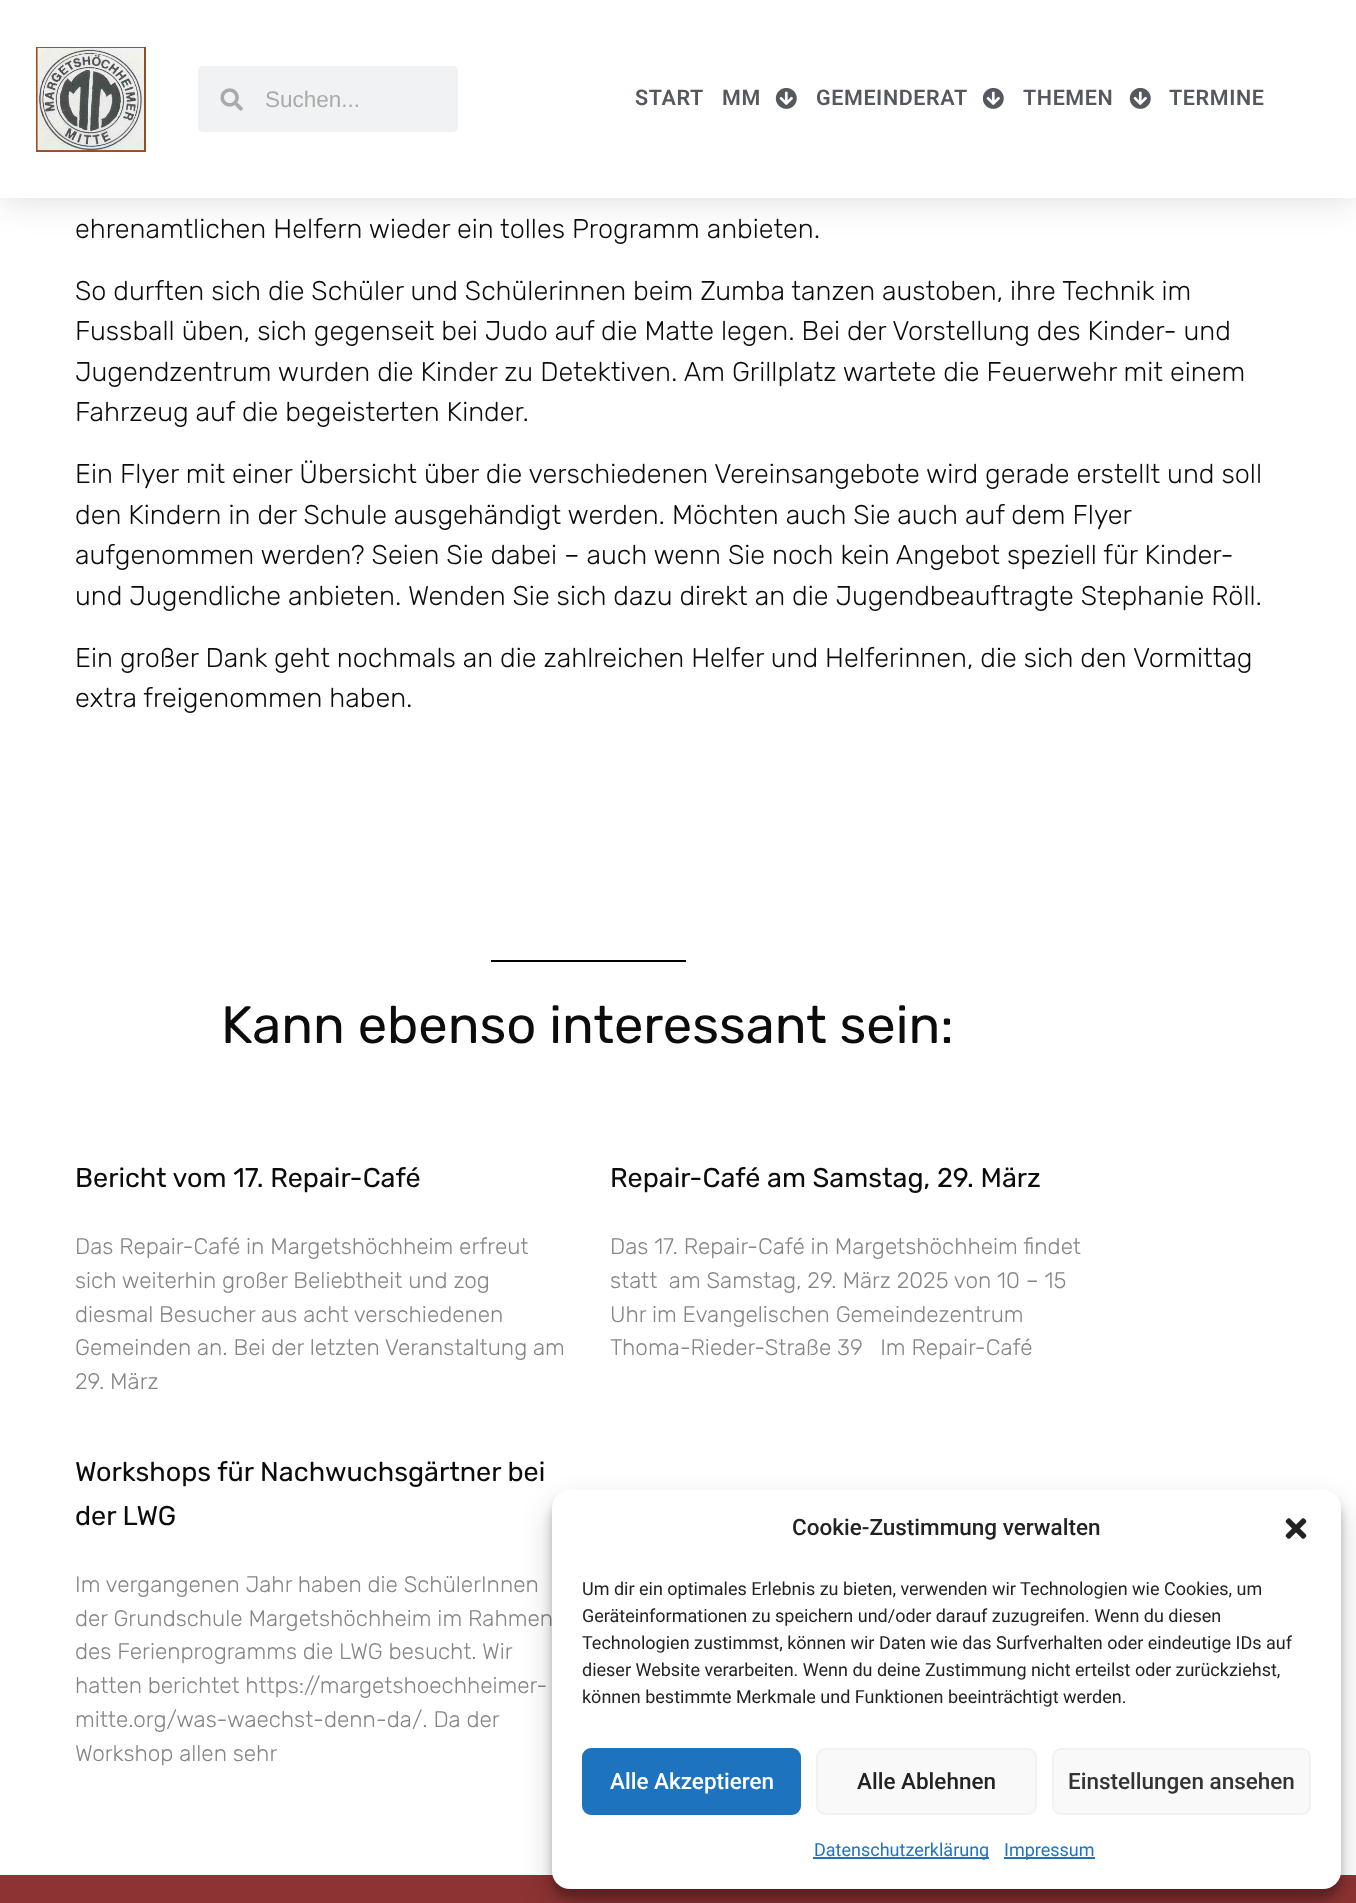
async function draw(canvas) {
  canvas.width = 1356;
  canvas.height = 1903;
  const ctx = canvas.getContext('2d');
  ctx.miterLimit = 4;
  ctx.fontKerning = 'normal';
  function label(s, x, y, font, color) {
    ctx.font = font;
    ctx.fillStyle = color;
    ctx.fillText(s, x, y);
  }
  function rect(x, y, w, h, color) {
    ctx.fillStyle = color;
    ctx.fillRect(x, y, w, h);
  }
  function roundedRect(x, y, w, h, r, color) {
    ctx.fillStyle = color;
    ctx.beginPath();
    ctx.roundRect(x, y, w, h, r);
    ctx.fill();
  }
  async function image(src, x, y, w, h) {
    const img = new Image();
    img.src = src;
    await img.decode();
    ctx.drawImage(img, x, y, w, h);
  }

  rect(0, 0, 1356, 1903, '#fff');
  ctx.fillStyle = '#00000026';
  ctx.filter = 'blur(18px)';
  ctx.beginPath();
  ctx.rect(0, 0, 1356, 198);
  ctx.fill();
  ctx.filter = 'none';
  rect(0, 0, 1356, 198, '#fff');
  ctx.strokeStyle = '#964f22';
  ctx.lineWidth = 2;
  ctx.strokeRect(37, 48, 108, 103);
  await image('assets/img1.png', 37, 47, 107, 104);
  roundedRect(198, 66, 260, 66, 5, '#f1f2f3');
  await image('assets/img2.png', 220, 88, 23, 23);
  label('Suchen...', 265, 107, '22.5px Liberation Sans', '#aaa');
  ctx.letterSpacing = '0.6px';
  label('START', 635, 105, '600 21.5px Roboto', '#54595f');
  label('MM', 722, 105, '600 21.5px Roboto', '#54595f');
  await image('assets/img3.png', 775, 87, 22, 22);
  label('GEMEINDERAT', 816, 105, '600 21.5px Roboto', '#54595f');
  await image('assets/img3.png', 982, 87, 22, 22);
  label('THEMEN', 1023, 105, '600 21.5px Roboto', '#54595f');
  await image('assets/img3.png', 1129, 87, 22, 22);
  label('TERMINE', 1169, 105, '600 21.5px Roboto', '#54595f');
  ctx.letterSpacing = '0px';
  label('ehrenamtlichen Helfern wieder ein tolles Programm anbieten.', 75, 238, '300 27px Rubik', '#0c0c0c');
  label('So durften sich die Schüler und Schülerinnen beim Zumba tanzen austoben, ihre Technik im', 75, 300, '300 27px Rubik', '#0c0c0c');
  label('Fussball üben, sich gegenseit bei Judo auf die Matte legen. Bei der Vorstellung des Kinder- und', 75, 340, '300 27px Rubik', '#0c0c0c');
  label('Jugendzentrum wurden die Kinder zu Detektiven. Am Grillplatz wartete die Feuerwehr mit einem', 75, 381, '300 27px Rubik', '#0c0c0c');
  label('Fahrzeug auf die begeisterten Kinder.', 75, 421, '300 27px Rubik', '#0c0c0c');
  label('Ein Flyer mit einer Übersicht über die verschiedenen Vereinsangebote wird gerade erstellt und soll', 75, 483, '300 27px Rubik', '#0c0c0c');
  label('den Kindern in der Schule ausgehändigt werden. Möchten auch Sie auch auf dem Flyer', 75, 524, '300 27px Rubik', '#0c0c0c');
  label('aufgenommen werden? Seien Sie dabei – auch wenn Sie noch kein Angebot speziell für Kinder-', 75, 564, '300 27px Rubik', '#0c0c0c');
  label('und Jugendliche anbieten. Wenden Sie sich dazu direkt an die Jugendbeauftragte Stephanie Röll.', 75, 605, '300 27px Rubik', '#0c0c0c');
  label('Ein großer Dank geht nochmals an die zahlreichen Helfer und Helferinnen, die sich den Vormittag', 75, 667, '300 27px Rubik', '#0c0c0c');
  label('extra freigenommen haben.', 75, 707, '300 27px Rubik', '#0c0c0c');
  rect(491, 960, 195, 2, '#000');
  label('Kann ebenso interessant sein:', 221, 1043, '52.5px Rubik', '#0c0c0c');
  label('Bericht vom 17. Repair-Café', 75, 1187, '27px Rubik', '#0c0c0c');
  label('Das Repair-Café in Margetshöchheim erfreut', 75, 1254, '300 22.5px Rubik', '#868686');
  label('sich weiterhin großer Beliebtheit und zog', 75, 1288, '300 22.5px Rubik', '#868686');
  label('diesmal Besucher aus acht verschiedenen', 75, 1322, '300 22.5px Rubik', '#868686');
  label('Gemeinden an. Bei der letzten Veranstaltung am', 75, 1355, '300 22.5px Rubik', '#868686');
  label('29. März', 75, 1389, '300 22.5px Rubik', '#868686');
  label('Repair-Café am Samstag, 29. März', 610, 1187, '27px Rubik', '#0c0c0c');
  label('Das 17. Repair-Café in Margetshöchheim findet', 610, 1254, '300 22.5px Rubik', '#868686');
  label('statt  am Samstag, 29. März 2025 von 10 – 15', 610, 1288, '300 22.5px Rubik', '#868686');
  label('Uhr im Evangelischen Gemeindezentrum', 610, 1322, '300 22.5px Rubik', '#868686');
  label('Thoma-Rieder-Straße 39   Im Repair-Café', 610, 1355, '300 22.5px Rubik', '#868686');
  label('Workshops für Nachwuchsgärtner bei', 75, 1481, '27px Rubik', '#0c0c0c');
  label('der LWG', 75, 1525, '27px Rubik', '#0c0c0c');
  label('Im vergangenen Jahr haben die SchülerInnen', 75, 1592, '300 22.5px Rubik', '#868686');
  label('der Grundschule Margetshöchheim im Rahmen', 75, 1626, '300 22.5px Rubik', '#868686');
  label('des Ferienprogramms die LWG besucht. Wir', 75, 1659, '300 22.5px Rubik', '#868686');
  label('hatten berichtet https://margetshoechheimer-', 75, 1693, '300 22.5px Rubik', '#868686');
  label('mitte.org/was-waechst-denn-da/. Da der', 75, 1727, '300 22.5px Rubik', '#868686');
  label('Workshop allen sehr', 75, 1761, '300 22.5px Rubik', '#868686');
  rect(0, 1875, 1356, 28, '#8d3333');
  ctx.fillStyle = '#0000003b';
  ctx.filter = 'blur(4.5px)';
  ctx.beginPath();
  ctx.roundRect(552, 1499, 789, 399, 18);
  ctx.fill();
  ctx.filter = 'none';
  ctx.fillStyle = '#00000030';
  ctx.filter = 'blur(15px)';
  ctx.beginPath();
  ctx.roundRect(552, 1505, 789, 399, 18);
  ctx.fill();
  ctx.filter = 'none';
  roundedRect(552, 1490, 789, 399, 18, '#fff');
  label('Cookie-Zustimmung verwalten', 792, 1535, '500 22.5px Roboto', '#222');
  await image('assets/img4.png', 1285, 1518, 22, 21);
  label('Um dir ein optimales Erlebnis zu bieten, verwenden wir Technologien wie Cookies, um', 582, 1595, '18px Roboto', '#222');
  label('Geräteinformationen zu speichern und/oder darauf zuzugreifen. Wenn du diesen', 582, 1622, '18px Roboto', '#222');
  label('Technologien zustimmst, können wir Daten wie das Surfverhalten oder eindeutige IDs auf', 582, 1649, '18px Roboto', '#222');
  label('dieser Website verarbeiten. Wenn du deine Zustimmung nicht erteilst oder zurückziehst,', 582, 1676, '18px Roboto', '#222');
  label('können bestimmte Merkmale und Funktionen beeinträchtigt werden.', 582, 1703, '18px Roboto', '#222');
  ctx.fillStyle = '#1e73be';
  ctx.beginPath();
  ctx.roundRect(583, 1749, 217, 65, 8);
  ctx.fill();
  ctx.strokeStyle = '#1e73be';
  ctx.stroke();
  label('Alle Akzeptieren', 610, 1789, '500 22.5px Roboto', '#fff');
  ctx.fillStyle = '#f9f9f9';
  ctx.beginPath();
  ctx.roundRect(817, 1749, 219, 65, 8);
  ctx.fill();
  ctx.strokeStyle = '#f2f2f2';
  ctx.stroke();
  label('Alle Ablehnen', 857, 1789, '500 22.5px Roboto', '#222');
  ctx.fillStyle = '#f9f9f9';
  ctx.beginPath();
  ctx.roundRect(1053, 1749, 257, 65, 8);
  ctx.fill();
  ctx.stroke();
  label('Einstellungen ansehen', 1068, 1789, '500 22.5px Roboto', '#333');
  rect(813, 1857, 176, 2, '#1e73be');
  label('Datenschutzerklärung', 814, 1856, '18px Roboto', '#1e73be');
  rect(1004, 1857, 91, 2, '#1e73be');
  label('Impressum', 1004, 1856, '18px Roboto', '#1e73be');
}

draw(document.querySelector('canvas'));
